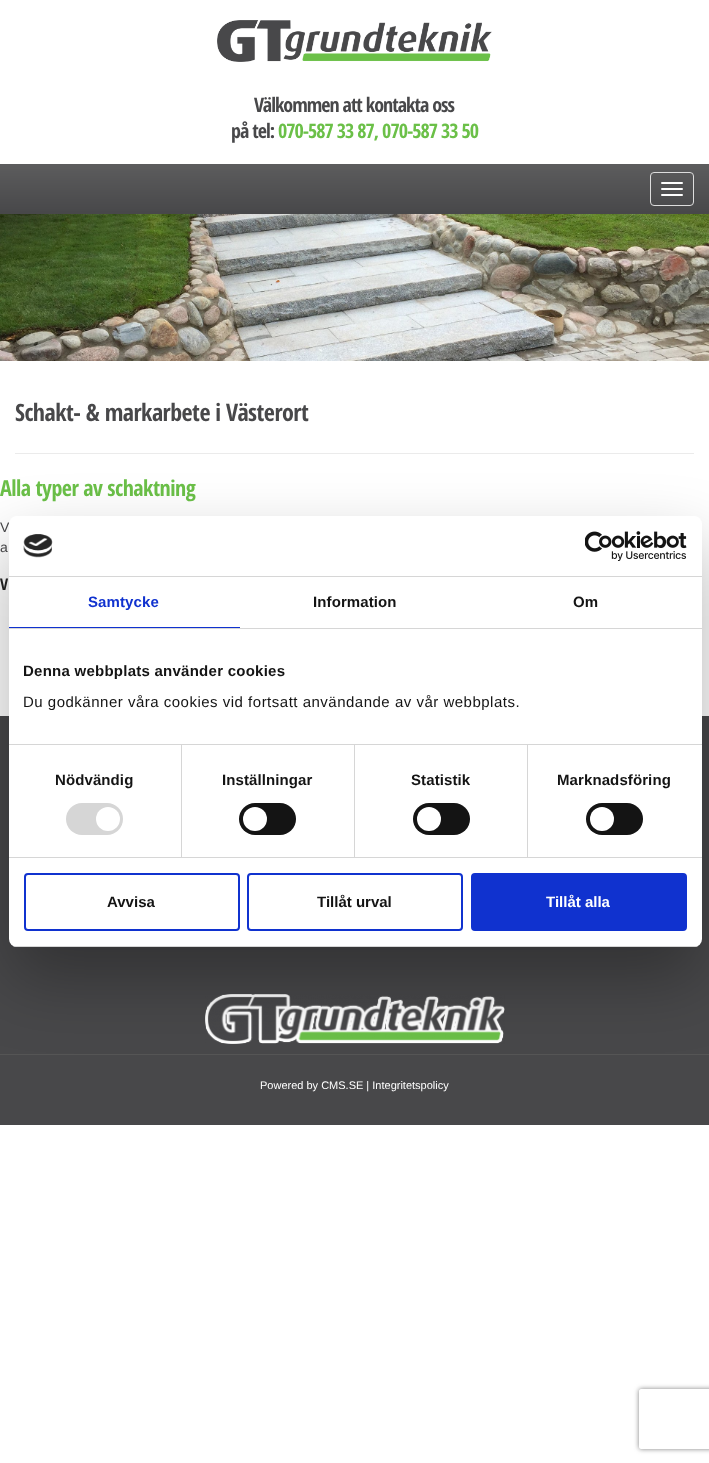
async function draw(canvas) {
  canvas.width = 709;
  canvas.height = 1463;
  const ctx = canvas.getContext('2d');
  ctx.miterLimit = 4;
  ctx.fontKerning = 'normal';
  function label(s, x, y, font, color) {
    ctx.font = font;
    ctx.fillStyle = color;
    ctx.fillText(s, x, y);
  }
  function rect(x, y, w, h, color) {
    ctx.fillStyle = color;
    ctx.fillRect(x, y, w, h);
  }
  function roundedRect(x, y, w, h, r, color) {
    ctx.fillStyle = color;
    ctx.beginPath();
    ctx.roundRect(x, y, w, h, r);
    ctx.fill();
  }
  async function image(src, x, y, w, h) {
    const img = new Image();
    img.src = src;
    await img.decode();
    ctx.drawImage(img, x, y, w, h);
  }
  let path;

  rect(0, 0, 709, 1463, '#fff');
  await image('assets/img1.png', 0, 164, 709, 50);
  await image('assets/img2.png', 217, 20, 275, 42);
  ctx.letterSpacing = '-1px';
  label('Välkommen att kontakta oss', 254, 112, 'bold 20px Open Sans Condensed', '#48484a');
  label('på tel:', 231, 138, 'bold 20px Open Sans Condensed', '#48484a');
  label('070-587 33 87, 070-587 33 50', 278, 138, 'bold 20px Open Sans Condensed', '#6bc048');
  ctx.beginPath();
  ctx.roundRect(650.5, 172.5, 43, 33, 3.5);
  ctx.strokeStyle = '#ddd';
  ctx.stroke();
  roundedRect(661, 182, 22, 2, 1, '#fff');
  roundedRect(661, 188, 22, 2, 1, '#fff');
  roundedRect(661, 194, 22, 2, 1, '#fff');
  await image('assets/img3.png', 0, 214, 709, 147);
  ctx.letterSpacing = '-0.5px';
  label('Schakt- & markarbete i Västerort', 15, 421, 'bold 24px Open Sans Condensed', '#48484a');
  rect(15, 453, 679, 1, '#ebebeb');
  label('Alla typer av schaktning', 0, 496, 'bold 22px Open Sans Condensed', '#6bc048');
  ctx.letterSpacing = '0px';
  label('V', 0, 532, '14px Liberation Sans', '#48484a');
  label('a', 0, 552, '14px Liberation Sans', '#48484a');
  label('V', 0, 590, 'bold 16px Open Sans Condensed', '#222');
  rect(0, 716, 709, 409, '#48484a');
  await image('assets/img4.png', 205, 994, 300, 50);
  rect(0, 1054, 709, 1, '#555');
  label('Powered by CMS.SE | Integritetspolicy', 260, 1089, '11px Liberation Sans', '#fff');
  ctx.fillStyle = '#0000004d';
  ctx.filter = 'blur(34px)';
  ctx.beginPath();
  ctx.roundRect(9, 548, 693, 431, 8);
  ctx.fill();
  ctx.filter = 'none';
  roundedRect(9, 516, 693, 431, 8, '#fff');
  rect(9, 576, 693, 1, '#d6d6d6');
  await image('assets/img5.png', 23, 534, 30, 24);
  await image('assets/img6.png', 585, 531, 102, 30);
  rect(9, 628, 693, 1, '#d6d6d6');
  rect(9, 627, 231, 1, '#1032cf');
  ctx.letterSpacing = '0.1px';
  label('Samtycke', 88, 607, 'bold 15px Liberation Sans', '#1032cf');
  label('Information', 313, 607, 'bold 15px Liberation Sans', '#141414');
  label('Om', 573, 607, 'bold 15px Liberation Sans', '#141414');
  rect(9, 744, 693, 1, '#d6d6d6');
  ctx.letterSpacing = '0.25px';
  label('Denna webbplats använder cookies', 23, 676, 'bold 15px Liberation Sans', '#141414');
  ctx.letterSpacing = '0.5px';
  label('Du godkänner våra cookies vid fortsatt användande av vår webbplats.', 23, 707, '15px Liberation Sans', '#141414');
  rect(9, 857, 693, 1, '#d6d6d6');
  rect(181, 745, 1, 112, '#d6d6d6');
  ctx.letterSpacing = '0.1px';
  label('Nödvändig', 55, 785, 'bold 15px Liberation Sans', '#141414');
  roundedRect(66, 803, 57, 32, 16, '#d6d6d6');
  ctx.fillStyle = '#fff';
  ctx.beginPath();
  ctx.arc(108, 819, 12, 0, 2 * Math.PI);
  ctx.fill();
  rect(354, 745, 1, 112, '#d6d6d6');
  label('Inställningar', 222, 785, 'bold 15px Liberation Sans', '#141414');
  roundedRect(239, 803, 57, 32, 16, '#141414');
  ctx.fillStyle = '#fff';
  ctx.beginPath();
  ctx.arc(255, 819, 12, 0, 2 * Math.PI);
  ctx.fill();
  rect(527, 745, 1, 112, '#d6d6d6');
  label('Statistik', 411, 785, 'bold 15px Liberation Sans', '#141414');
  roundedRect(413, 803, 57, 32, 16, '#141414');
  ctx.fillStyle = '#fff';
  ctx.beginPath();
  ctx.arc(429, 819, 12, 0, 2 * Math.PI);
  ctx.fill();
  label('Marknadsföring', 557, 785, 'bold 15px Liberation Sans', '#141414');
  roundedRect(586, 803, 57, 32, 16, '#141414');
  ctx.fillStyle = '#fff';
  ctx.beginPath();
  ctx.arc(602, 819, 12, 0, 2 * Math.PI);
  ctx.fill();
  ctx.save();
  ctx.beginPath();
  ctx.roundRect(9, 516, 693, 431, 8);
  ctx.clip();
  rect(9, 946, 693, 1, '#d6d6d6');
  ctx.restore();
  ctx.beginPath();
  ctx.roundRect(25, 874, 214, 56, 3);
  ctx.strokeStyle = '#1032cf';
  ctx.lineWidth = 2;
  ctx.stroke();
  ctx.letterSpacing = '0px';
  label('Avvisa', 107, 907, 'bold 15px Liberation Sans', '#141414');
  ctx.beginPath();
  ctx.roundRect(248, 874, 214, 56, 3);
  ctx.stroke();
  label('Tillåt urval', 317, 907, 'bold 15px Liberation Sans', '#141414');
  ctx.fillStyle = '#1032cf';
  ctx.beginPath();
  ctx.roundRect(472, 874, 214, 56, 3);
  ctx.fill();
  ctx.stroke();
  label('Tillåt alla', 546, 907, 'bold 15px Liberation Sans', '#fff');
  ctx.save();
  path = new Path2D('M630 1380H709V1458H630ZM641 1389H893C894 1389 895 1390 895 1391V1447C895 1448 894 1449 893 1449H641C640 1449 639 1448 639 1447V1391C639 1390 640 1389 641 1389Z');
  ctx.clip(path, 'evenodd');
  ctx.fillStyle = '#808080';
  ctx.filter = 'blur(2.5px)';
  ctx.beginPath();
  ctx.roundRect(639, 1389, 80, 60, 2);
  ctx.fill();
  ctx.filter = 'none';
  ctx.restore();
}

draw(document.querySelector('canvas'));
